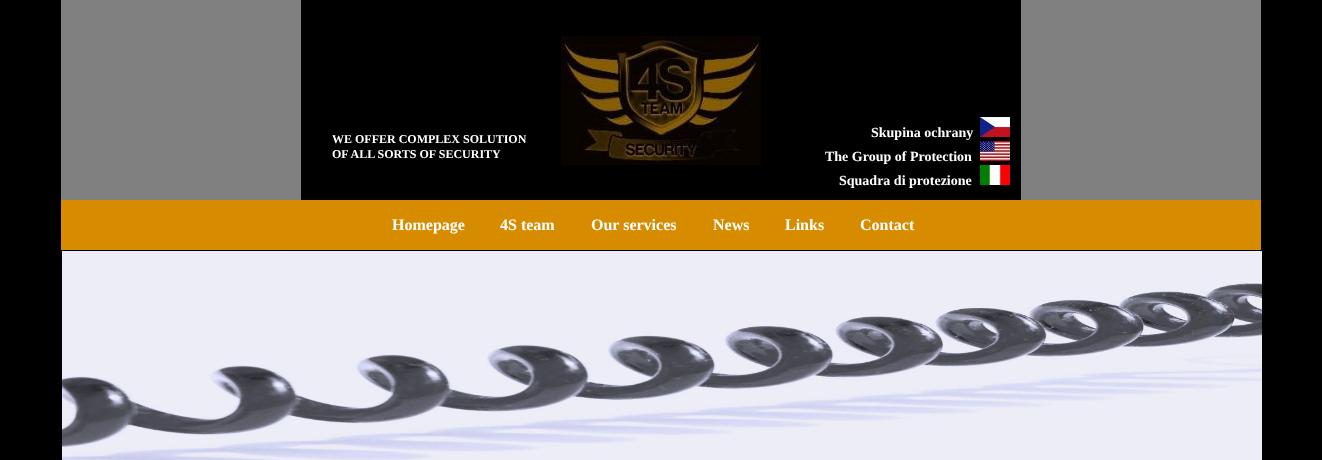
async function draw(canvas) {
  canvas.width = 1322;
  canvas.height = 460;
  const ctx = canvas.getContext('2d');
  ctx.miterLimit = 4;
  ctx.fontKerning = 'normal';
  function label(s, x, y, font, color) {
    ctx.font = font;
    ctx.fillStyle = color;
    ctx.fillText(s, x, y);
  }
  function rect(x, y, w, h, color) {
    ctx.fillStyle = color;
    ctx.fillRect(x, y, w, h);
  }
  async function image(src, x, y, w, h) {
    const img = new Image();
    img.src = src;
    await img.decode();
    ctx.drawImage(img, x, y, w, h);
  }

  rect(0, 0, 1322, 460, '#000');
  rect(61, 0, 240, 200, '#808080');
  label('WE OFFER COMPLEX SOLUTION', 332, 143, 'bold 12px Liberation Serif', '#fff');
  label('OF ALL SORTS OF SECURITY', 332, 158, 'bold 12px Liberation Serif', '#fff');
  await image('assets/img1.png', 561, 36, 200, 129);
  label('Skupina ochrany', 871, 137, 'bold 14px Liberation Serif', '#fff');
  await image('assets/img2.png', 980, 117, 30, 20);
  label('The Group of Protection', 825, 161, 'bold 14px Liberation Serif', '#fff');
  await image('assets/img3.png', 980, 141, 30, 20);
  label('Squadra di protezione', 839, 185, 'bold 14px Liberation Serif', '#fff');
  await image('assets/img4.png', 980, 165, 30, 20);
  rect(1021, 0, 240, 200, '#808080');
  rect(61, 200, 1200, 50, '#d78c00');
  label('Homepage', 392, 230, 'bold 16px Liberation Serif', '#fff');
  label('4S team', 500, 230, 'bold 16px Liberation Serif', '#fff');
  label('Our services', 591, 230, 'bold 16px Liberation Serif', '#fff');
  label('News', 713, 230, 'bold 16px Liberation Serif', '#fff');
  label('Links', 785, 230, 'bold 16px Liberation Serif', '#fff');
  label('Contact', 860, 230, 'bold 16px Liberation Serif', '#fff');
  await image('assets/img5.png', 62, 251, 1200, 209);
}

draw(document.querySelector('canvas'));
